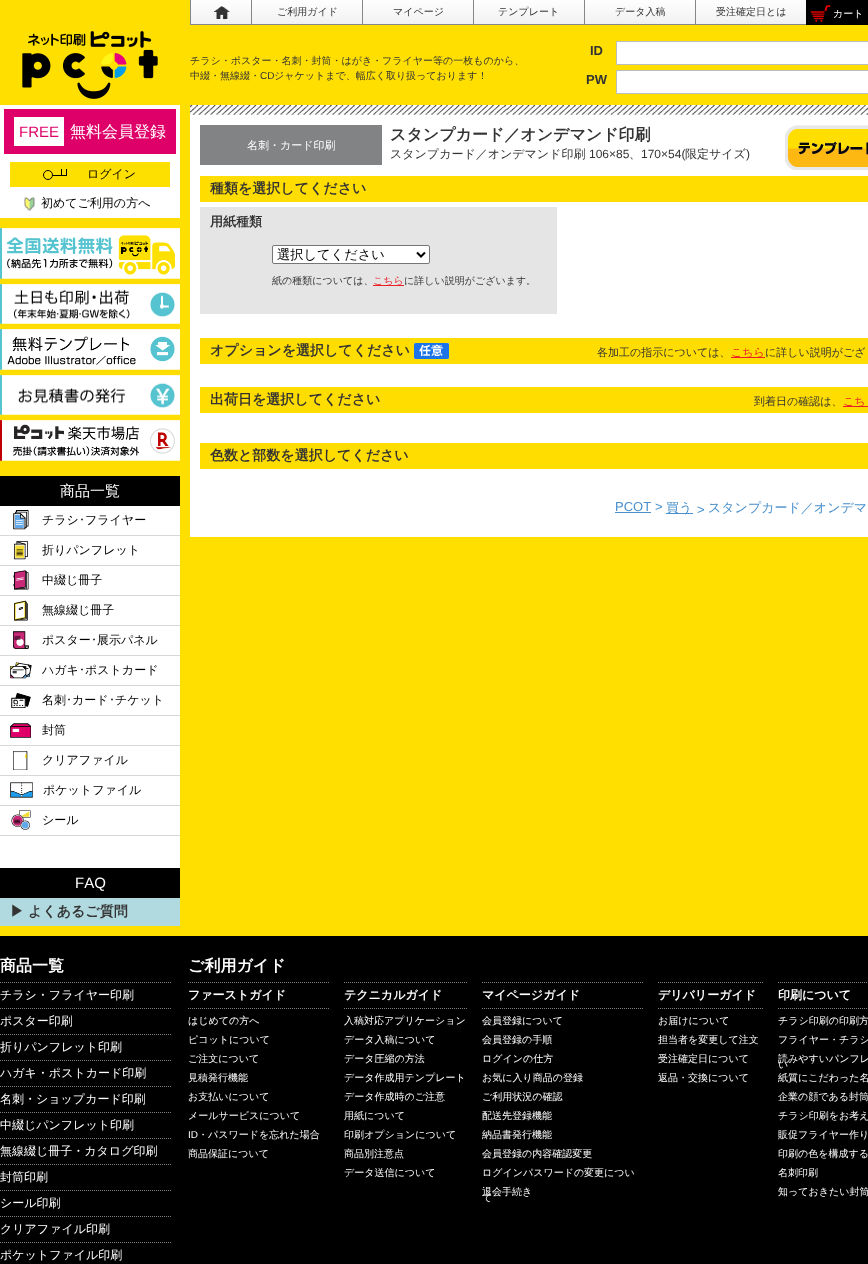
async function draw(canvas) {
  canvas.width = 868;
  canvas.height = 1264;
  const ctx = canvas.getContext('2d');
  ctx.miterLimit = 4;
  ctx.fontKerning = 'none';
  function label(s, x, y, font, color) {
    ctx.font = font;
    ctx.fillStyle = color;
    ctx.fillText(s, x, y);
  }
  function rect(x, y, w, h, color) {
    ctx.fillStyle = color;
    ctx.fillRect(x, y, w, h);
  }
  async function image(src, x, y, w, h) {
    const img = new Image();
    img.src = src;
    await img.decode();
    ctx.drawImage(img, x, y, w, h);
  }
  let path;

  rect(0, 0, 868, 1264, '#ffdf00');
  await image('assets/img1.png', 191, 0, 60, 24);
  rect(190, 24, 616, 1, '#848689');
  rect(190, 0, 1, 25, '#848689');
  await image('assets/img2.png', 252, 0, 110, 24);
  rect(251, 0, 1, 25, '#848689');
  label('ご利用ガイド', 277, 15, '500 10px WenQuanYi Zen Hei', '#333');
  await image('assets/img2.png', 363, 0, 110, 24);
  rect(362, 0, 1, 25, '#848689');
  label('マイページ', 393, 15, '500 10px WenQuanYi Zen Hei', '#333');
  await image('assets/img2.png', 474, 0, 110, 24);
  rect(473, 0, 1, 25, '#848689');
  label('テンプレート', 498, 15, '500 10px WenQuanYi Zen Hei', '#333');
  await image('assets/img2.png', 585, 0, 110, 24);
  rect(584, 0, 1, 25, '#848689');
  label('データ入稿', 615, 15, '500 10px WenQuanYi Zen Hei', '#333');
  await image('assets/img2.png', 696, 0, 110, 24);
  rect(695, 0, 1, 25, '#848689');
  label('受注確定日とは', 716, 15, '500 10px WenQuanYi Zen Hei', '#333');
  rect(806, 0, 62, 25, '#000');
  await image('assets/img3.png', 810, 5, 21, 17);
  label('カート', 833, 17, '500 10px WenQuanYi Zen Hei', '#fff');
  await image('assets/img4.png', 22, 31, 136, 68);
  label('チラシ・ポスター・名刺・封筒・はがき・フライヤー等の一枚ものから、', 190, 64, '500 10px WenQuanYi Zen Hei', '#333');
  label('中綴・無線綴・', 190, 79, '500 10px WenQuanYi Zen Hei', '#333');
  label('CD', 260, 79, '10px Liberation Sans', '#333');
  label('ジャケットまで、幅広く取り扱っております！', 274, 79, '500 10px WenQuanYi Zen Hei', '#333');
  label('ID', 590, 55, 'bold 13px Liberation Sans', '#333');
  ctx.fillStyle = '#fff';
  ctx.beginPath();
  ctx.rect(616.5, 41.5, 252, 23);
  ctx.fill();
  ctx.strokeStyle = '#bbbdbf';
  ctx.stroke();
  label('PW', 586, 84, 'bold 13px Liberation Sans', '#333');
  ctx.fillStyle = '#fff';
  ctx.beginPath();
  ctx.rect(616.5, 70.5, 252, 23);
  ctx.fill();
  ctx.stroke();
  rect(0, 105, 180, 763, '#fff');
  rect(4, 109, 172, 45, '#de0068');
  rect(14, 117, 50, 29, '#fff');
  label('FREE', 19, 137, '15px Liberation Sans', '#de0068');
  label('無料会員登録', 70, 137, '500 16px WenQuanYi Zen Hei', '#fff');
  rect(10, 162, 160, 25, '#fee000');
  ctx.beginPath();
  ctx.arc(48, 175, 4.5, 0, 2 * Math.PI);
  ctx.strokeStyle = '#000';
  ctx.stroke();
  rect(66, 169, 1, 7, '#000');
  rect(53, 175, 14, 1, '#000');
  rect(61, 169, 1, 6, '#000');
  label('ログイン', 87, 178, '500 12px WenQuanYi Zen Hei', '#000');
  await image('assets/img5.png', 24, 197, 11, 14);
  label('初めてご利用の方へ', 41, 207, '500 12px WenQuanYi Zen Hei', '#000');
  rect(0, 218, 180, 258, '#fd0');
  await image('assets/img6.png', 0, 228, 180, 51);
  await image('assets/img7.png', 0, 284, 180, 40);
  await image('assets/img8.png', 0, 329, 180, 41);
  await image('assets/img9.png', 0, 375, 180, 40);
  await image('assets/img10.png', 0, 420, 180, 41);
  rect(0, 476, 180, 30, '#000');
  label('商品一覧', 60, 496, '500 15px WenQuanYi Zen Hei', '#fff');
  rect(0, 535, 180, 1, '#d8d8d8');
  await image('assets/img11.png', 13, 510, 16, 20);
  label('チラシ', 42, 524, '500 12px WenQuanYi Zen Hei', '#000');
  label('･', 79, 524, '12px IPAPGothic', '#000');
  label('フライヤー', 85, 524, '500 12px WenQuanYi Zen Hei', '#000');
  rect(0, 565, 180, 1, '#d8d8d8');
  await image('assets/img12.png', 14, 541, 14, 19);
  label('折りパンフレット', 42, 554, '500 12px WenQuanYi Zen Hei', '#000');
  rect(0, 595, 180, 1, '#d8d8d8');
  await image('assets/img13.png', 13, 570, 16, 20);
  label('中綴じ冊子', 42, 584, '500 12px WenQuanYi Zen Hei', '#000');
  rect(0, 625, 180, 1, '#d8d8d8');
  await image('assets/img14.png', 14, 600, 14, 21);
  label('無線綴じ冊子', 42, 614, '500 12px WenQuanYi Zen Hei', '#000');
  rect(0, 655, 180, 1, '#d8d8d8');
  await image('assets/img15.png', 13, 631, 16, 18);
  label('ポスター', 42, 644, '500 12px WenQuanYi Zen Hei', '#000');
  label('･', 91, 644, '12px IPAPGothic', '#000');
  label('展示パネル', 97, 644, '500 12px WenQuanYi Zen Hei', '#000');
  rect(0, 685, 180, 1, '#d8d8d8');
  await image('assets/img16.png', 10, 662, 22, 17);
  label('ハガキ', 42, 674, '500 12px WenQuanYi Zen Hei', '#000');
  label('･', 79, 674, '12px IPAPGothic', '#000');
  label('ポストカード', 85, 674, '500 12px WenQuanYi Zen Hei', '#000');
  rect(0, 715, 180, 1, '#d8d8d8');
  await image('assets/img17.png', 11, 693, 20, 15);
  label('名刺', 42, 704, '500 12px WenQuanYi Zen Hei', '#000');
  label('･', 66, 704, '12px IPAPGothic', '#000');
  label('カード', 72, 704, '500 12px WenQuanYi Zen Hei', '#000');
  label('･', 109, 704, '12px IPAPGothic', '#000');
  label('チケット', 115, 704, '500 12px WenQuanYi Zen Hei', '#000');
  rect(0, 745, 180, 1, '#d8d8d8');
  await image('assets/img18.png', 10, 723, 21, 15);
  label('封筒', 42, 734, '500 12px WenQuanYi Zen Hei', '#000');
  rect(0, 775, 180, 1, '#d8d8d8');
  await image('assets/img19.png', 13, 751, 15, 19);
  label('クリアファイル', 42, 764, '500 12px WenQuanYi Zen Hei', '#000');
  rect(0, 805, 180, 1, '#d8d8d8');
  await image('assets/img20.png', 10, 782, 23, 16);
  label('ポケットファイル', 43, 794, '500 12px WenQuanYi Zen Hei', '#000');
  rect(0, 835, 180, 1, '#d8d8d8');
  await image('assets/img21.png', 11, 810, 20, 20);
  label('シール', 42, 824, '500 12px WenQuanYi Zen Hei', '#000');
  rect(0, 868, 180, 30, '#000');
  label('FAQ', 75, 888, '15px Liberation Sans', '#fff');
  rect(0, 898, 180, 28, '#b1dae0');
  label('▶︎', 10, 916, 'bold 14px WenQuanYi Zen Hei', '#333');
  label('よくあるご質問', 28, 916, 'bold 14px WenQuanYi Zen Hei', '#333');
  rect(190, 115, 678, 422, '#fff');
  await image('assets/img22.png', 190, 105, 678, 10);
  rect(200, 125, 182, 40, '#828385');
  label('名刺・カード印刷', 247, 149, '500 11px WenQuanYi Zen Hei', '#fff');
  label('スタンプカード／オンデマンド印刷', 390, 140, 'bold 16px WenQuanYi Zen Hei', '#333');
  label('スタンプカード／オンデマンド印刷', 390, 158, '500 12px WenQuanYi Zen Hei', '#333');
  label('106×85', 589, 158, '12px Liberation Sans', '#333');
  label('、', 629, 158, '500 12px WenQuanYi Zen Hei', '#333');
  label('170×54(', 641, 158, '12px Liberation Sans', '#333');
  label('限定サイズ', 685, 158, '500 12px WenQuanYi Zen Hei', '#333');
  label(')', 746, 158, '12px Liberation Sans', '#333');
  await image('assets/img23.png', 785, 125, 83, 45);
  rect(200, 176, 668, 26, '#fd0');
  label('種類を選択してください', 210, 193, 'bold 14px WenQuanYi Zen Hei', '#333');
  rect(200, 207, 357, 107, '#e6e5e5');
  label('用紙種類', 210, 226, 'bold 13px WenQuanYi Zen Hei', '#333');
  ctx.fillStyle = '#fff';
  ctx.beginPath();
  ctx.roundRect(272.5, 245.5, 157, 18, 1.5);
  ctx.fill();
  ctx.strokeStyle = '#767676';
  ctx.stroke();
  path = new Path2D('M417 252.5L421 256.5L425 252.5');
  ctx.strokeStyle = '#000';
  ctx.lineWidth = 2;
  ctx.stroke(path);
  label('選択してください', 277, 259, '500 13.25px WenQuanYi Zen Hei', '#000');
  label('紙の種類については、', 272, 284, '500 10px WenQuanYi Zen Hei', '#333');
  rect(373, 285, 31, 1, '#eb1f26');
  label('こちら', 373, 284, '500 10px WenQuanYi Zen Hei', '#eb1f26');
  label('に詳しい説明がございます。', 404, 284, '500 10px WenQuanYi Zen Hei', '#333');
  rect(200, 338, 668, 26, '#fd0');
  label('オプションを選択してください', 210, 355, 'bold 14px WenQuanYi Zen Hei', '#333');
  await image('assets/img24.png', 414, 343, 35, 16);
  label('各加工の指示については、', 597, 356, '500 11px WenQuanYi Zen Hei', '#333');
  rect(731, 357, 34, 1, '#eb1f26');
  label('こちら', 731, 356, '500 11px WenQuanYi Zen Hei', '#eb1f26');
  label('に詳しい説明がござ', 765, 356, '500 11px WenQuanYi Zen Hei', '#333');
  rect(200, 387, 668, 26, '#fd0');
  label('出荷日を選択してください', 210, 404, 'bold 14px WenQuanYi Zen Hei', '#333');
  label('到着日の確認は、', 754, 405, '500 11px WenQuanYi Zen Hei', '#333');
  rect(843, 406, 25, 1, '#eb1f26');
  label('こち', 843, 405, '500 11px WenQuanYi Zen Hei', '#eb1f26');
  rect(200, 443, 668, 26, '#fd0');
  label('色数と部数を選択してください', 210, 460, 'bold 14px WenQuanYi Zen Hei', '#333');
  label('PCOT', 615, 511, '13px Liberation Sans', '#488fcc');
  rect(615, 512, 36, 1, '#488fcc');
  label('>', 655, 511, '13px Liberation Sans', '#488fcc');
  rect(666, 513, 27, 1, '#488fcc');
  label('買う', 666, 512, '500 13px WenQuanYi Zen Hei', '#488fcc');
  label('>', 697, 514, '13px Liberation Sans', '#488fcc');
  label('スタンプカード／オンデマ', 708, 512, '500 13px WenQuanYi Zen Hei', '#488fcc');
  rect(0, 936, 868, 328, '#000');
  label('商品一覧', 0, 971, 'bold 16px WenQuanYi Zen Hei', '#fff');
  path = new Path2D('M0 982.5H172');
  ctx.strokeStyle = '#808080';
  ctx.lineWidth = 1;
  ctx.setLineDash([1, 1]);
  ctx.stroke(path);
  path = new Path2D('M0 1008.5H172');
  ctx.stroke(path);
  label('チラシ・フライヤー印刷', 0, 999, '500 12px WenQuanYi Zen Hei', '#fff');
  path = new Path2D('M0 1034.5H172');
  ctx.stroke(path);
  label('ポスター印刷', 0, 1025, '500 12px WenQuanYi Zen Hei', '#fff');
  path = new Path2D('M0 1060.5H172');
  ctx.stroke(path);
  label('折りパンフレット印刷', 0, 1051, '500 12px WenQuanYi Zen Hei', '#fff');
  path = new Path2D('M0 1086.5H172');
  ctx.stroke(path);
  label('ハガキ・ポストカード印刷', 0, 1077, '500 12px WenQuanYi Zen Hei', '#fff');
  path = new Path2D('M0 1112.5H172');
  ctx.stroke(path);
  label('名刺・ショップカード印刷', 0, 1103, '500 12px WenQuanYi Zen Hei', '#fff');
  path = new Path2D('M0 1138.5H172');
  ctx.stroke(path);
  label('中綴じパンフレット印刷', 0, 1129, '500 12px WenQuanYi Zen Hei', '#fff');
  path = new Path2D('M0 1164.5H172');
  ctx.stroke(path);
  label('無線綴じ冊子・カタログ印刷', 0, 1155, '500 12px WenQuanYi Zen Hei', '#fff');
  path = new Path2D('M0 1190.5H172');
  ctx.stroke(path);
  label('封筒印刷', 0, 1181, '500 12px WenQuanYi Zen Hei', '#fff');
  path = new Path2D('M0 1216.5H172');
  ctx.stroke(path);
  label('シール印刷', 0, 1207, '500 12px WenQuanYi Zen Hei', '#fff');
  path = new Path2D('M0 1242.5H172');
  ctx.stroke(path);
  label('クリアファイル印刷', 0, 1233, '500 12px WenQuanYi Zen Hei', '#fff');
  label('ポケットファイル印刷', 0, 1259, '500 12px WenQuanYi Zen Hei', '#fff');
  label('ご利用ガイド', 188, 971, 'bold 16px WenQuanYi Zen Hei', '#fff');
  path = new Path2D('M188 982.5H330');
  ctx.stroke(path);
  path = new Path2D('M188 1008.5H330');
  ctx.stroke(path);
  label('ファーストガイド', 188, 999, 'bold 12px WenQuanYi Zen Hei', '#fff');
  label('はじめての方へ', 188, 1024, '500 10px WenQuanYi Zen Hei', '#fff');
  label('ピコットについて', 188, 1043, '500 10px WenQuanYi Zen Hei', '#fff');
  label('ご注文について', 188, 1062, '500 10px WenQuanYi Zen Hei', '#fff');
  label('見積発行機能', 188, 1081, '500 10px WenQuanYi Zen Hei', '#fff');
  label('お支払いについて', 188, 1100, '500 10px WenQuanYi Zen Hei', '#fff');
  label('メールサービスについて', 188, 1119, '500 10px WenQuanYi Zen Hei', '#fff');
  label('ID', 188, 1138, '10px Liberation Sans', '#fff');
  label('・パスワードを忘れた場合', 198, 1138, '500 10px WenQuanYi Zen Hei', '#fff');
  label('商品保証について', 188, 1157, '500 10px WenQuanYi Zen Hei', '#fff');
  path = new Path2D('M344 982.5H468');
  ctx.stroke(path);
  path = new Path2D('M344 1008.5H468');
  ctx.stroke(path);
  label('テクニカルガイド', 344, 999, 'bold 12px WenQuanYi Zen Hei', '#fff');
  label('入稿対応アプリケーション', 344, 1024, '500 10px WenQuanYi Zen Hei', '#fff');
  label('データ入稿について', 344, 1043, '500 10px WenQuanYi Zen Hei', '#fff');
  label('データ圧縮の方法', 344, 1062, '500 10px WenQuanYi Zen Hei', '#fff');
  label('データ作成用テンプレート', 344, 1081, '500 10px WenQuanYi Zen Hei', '#fff');
  label('データ作成時のご注意', 344, 1100, '500 10px WenQuanYi Zen Hei', '#fff');
  label('用紙について', 344, 1119, '500 10px WenQuanYi Zen Hei', '#fff');
  label('印刷オプションについて', 344, 1138, '500 10px WenQuanYi Zen Hei', '#fff');
  label('商品別注意点', 344, 1157, '500 10px WenQuanYi Zen Hei', '#fff');
  label('データ送信について', 344, 1176, '500 10px WenQuanYi Zen Hei', '#fff');
  path = new Path2D('M482 982.5H644');
  ctx.stroke(path);
  path = new Path2D('M482 1008.5H644');
  ctx.stroke(path);
  label('マイページガイド', 482, 999, 'bold 12px WenQuanYi Zen Hei', '#fff');
  label('会員登録について', 482, 1024, '500 10px WenQuanYi Zen Hei', '#fff');
  label('会員登録の手順', 482, 1043, '500 10px WenQuanYi Zen Hei', '#fff');
  label('ログインの仕方', 482, 1062, '500 10px WenQuanYi Zen Hei', '#fff');
  label('お気に入り商品の登録', 482, 1081, '500 10px WenQuanYi Zen Hei', '#fff');
  label('ご利用状況の確認', 482, 1100, '500 10px WenQuanYi Zen Hei', '#fff');
  label('配送先登録機能', 482, 1119, '500 10px WenQuanYi Zen Hei', '#fff');
  label('納品書発行機能', 482, 1138, '500 10px WenQuanYi Zen Hei', '#fff');
  label('会員登録の内容確認変更', 482, 1157, '500 10px WenQuanYi Zen Hei', '#fff');
  label('ログインパスワードの変更につい', 482, 1176, '500 10px WenQuanYi Zen Hei', '#fff');
  label('て', 482, 1201, '500 10px WenQuanYi Zen Hei', '#fff');
  label('退会手続き', 482, 1195, '500 10px WenQuanYi Zen Hei', '#fff');
  path = new Path2D('M658 982.5H764');
  ctx.stroke(path);
  path = new Path2D('M658 1008.5H764');
  ctx.stroke(path);
  label('デリバリーガイド', 658, 999, 'bold 12px WenQuanYi Zen Hei', '#fff');
  label('お届けについて', 658, 1024, '500 10px WenQuanYi Zen Hei', '#fff');
  label('担当者を変更して注文', 658, 1043, '500 10px WenQuanYi Zen Hei', '#fff');
  label('受注確定日について', 658, 1062, '500 10px WenQuanYi Zen Hei', '#fff');
  label('返品・交換について', 658, 1081, '500 10px WenQuanYi Zen Hei', '#fff');
  path = new Path2D('M778 982.5H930');
  ctx.stroke(path);
  path = new Path2D('M778 1008.5H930');
  ctx.stroke(path);
  label('印刷について', 778, 999, 'bold 12px WenQuanYi Zen Hei', '#fff');
  label('チラシ印刷の印刷方', 778, 1024, '500 10px WenQuanYi Zen Hei', '#fff');
  label('フライヤー・チラシ', 778, 1043, '500 10px WenQuanYi Zen Hei', '#fff');
  label('い', 778, 1068, '500 10px WenQuanYi Zen Hei', '#fff');
  label('読みやすいパンフレ', 778, 1062, '500 10px WenQuanYi Zen Hei', '#fff');
  label('紙質にこだわった名', 778, 1081, '500 10px WenQuanYi Zen Hei', '#fff');
  label('企業の顔である封筒', 778, 1100, '500 10px WenQuanYi Zen Hei', '#fff');
  label('チラシ印刷をお考え', 778, 1119, '500 10px WenQuanYi Zen Hei', '#fff');
  label('販促フライヤー作り', 778, 1138, '500 10px WenQuanYi Zen Hei', '#fff');
  label('印刷の色を構成する', 778, 1157, '500 10px WenQuanYi Zen Hei', '#fff');
  label('名刺印刷', 778, 1176, '500 10px WenQuanYi Zen Hei', '#fff');
  label('知っておきたい封筒', 778, 1195, '500 10px WenQuanYi Zen Hei', '#fff');
}

draw(document.querySelector('canvas'));
